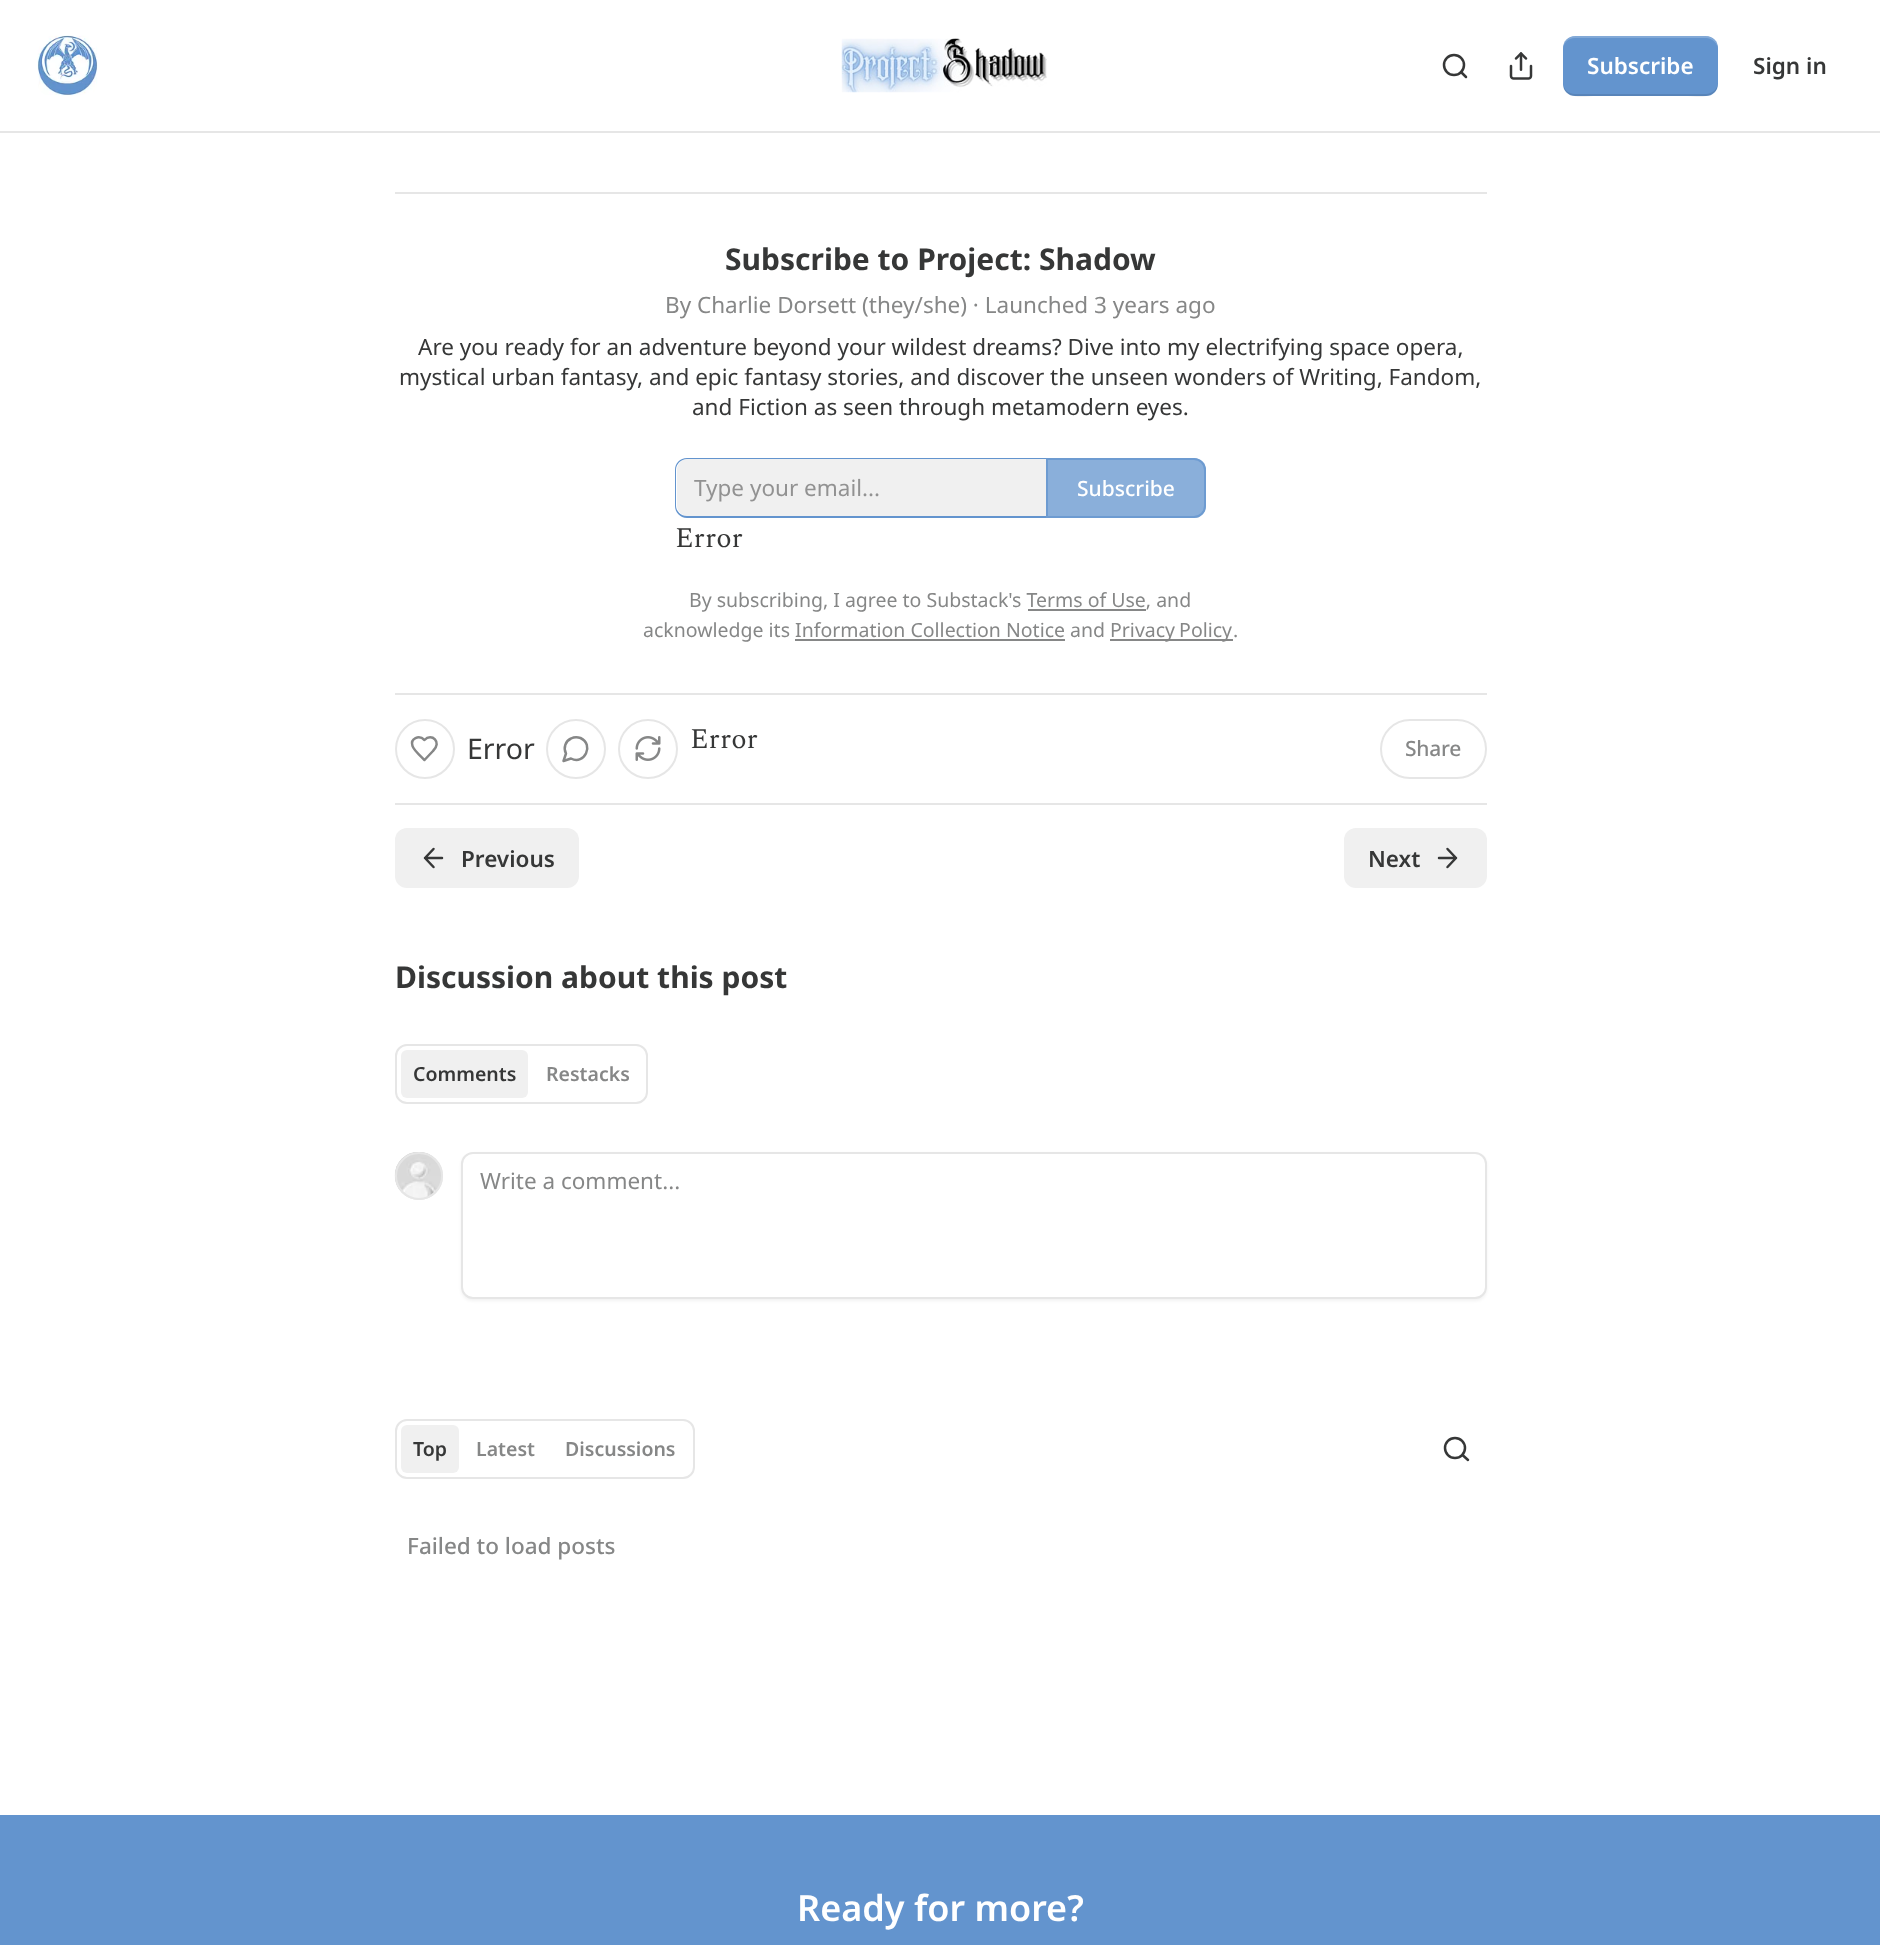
async function draw(canvas) {
  canvas.width = 1880;
  canvas.height = 1945;
  const ctx = canvas.getContext('2d');
  ctx.miterLimit = 4;
  ctx.fontKerning = 'normal';
  function label(s, x, y, font, color) {
    ctx.font = font;
    ctx.fillStyle = color;
    ctx.fillText(s, x, y);
  }
  function rect(x, y, w, h, color) {
    ctx.fillStyle = color;
    ctx.fillRect(x, y, w, h);
  }
  function roundedRect(x, y, w, h, r, color) {
    ctx.fillStyle = color;
    ctx.beginPath();
    ctx.roundRect(x, y, w, h, r);
    ctx.fill();
  }
  async function image(src, x, y, w, h) {
    const img = new Image();
    img.src = src;
    await img.decode();
    ctx.drawImage(img, x, y, w, h);
  }
  let path;

  rect(0, 0, 1880, 1945, '#fff');
  rect(0, 131, 1880, 2, '#e6e6e6');
  await image('assets/img1.png', 37, 35, 61, 61);
  await image('assets/img2.png', 841, 38, 206, 55);
  ctx.beginPath();
  ctx.arc(1454, 65, 10, 0, 2 * Math.PI);
  ctx.strokeStyle = '#363737';
  ctx.lineWidth = 2.5;
  ctx.stroke();
  path = new Path2D('M1466 77L1461 72');
  ctx.lineCap = 'round';
  ctx.lineJoin = 'round';
  ctx.stroke(path);
  await image('assets/img3.png', 1509, 52, 24, 28);
  roundedRect(1563, 36, 155, 60, 12, '#6394ce');
  ctx.fillStyle = '#0000001a';
  path = new Path2D('M1563 82C1563 101 1583 96 1597 96H1684C1698 96 1718 101 1718 82C1718 89 1712 94 1706 94H1575C1568 94 1563 89 1563 82Z');
  ctx.fill(path);
  ctx.fillStyle = '#ffffff33';
  path = new Path2D('M1575 38H1706C1712 38 1718 43 1718 50C1718 31 1698 36 1684 36H1597C1583 36 1563 31 1563 50C1563 43 1568 38 1575 38Z');
  ctx.fill(path);
  label('Subscribe', 1587, 74, '600 22.5px Noto Sans', '#fff');
  label('Sign in', 1753, 74, '600 22.5px Noto Sans', '#363737');
  rect(395, 192, 1092, 2, '#e6e6e6');
  label('Subscribe to Project: Shadow', 725, 270, 'bold 30px Noto Sans', '#363737');
  label('By Charlie Dorsett (they/she) · Launched 3 years ago', 665, 313, '22.5px Noto Sans', '#868787');
  label('Are you ready for an adventure beyond your wildest dreams? Dive into my electrifying space opera,', 418, 355, '22.5px Noto Sans', '#363737');
  label('mystical urban fantasy, and epic fantasy stories, and discover the unseen wonders of Writing, Fandom,', 399, 385, '22.5px Noto Sans', '#363737');
  label('and Fiction as seen through metamodern eyes.', 692, 415, '22.5px Noto Sans', '#363737');
  ctx.fillStyle = '#f0f0f0';
  ctx.beginPath();
  ctx.roundRect(677, 459, 369, 57, [11, 0, 0, 11]);
  ctx.fill();
  ctx.fillStyle = '#6394ce';
  path = new Path2D('M687 458H1046V518H687C680 518 675 512 675 506V470C675 463 680 458 687 458ZM687 459H1046V516H687C681 516 676 511 676 506V470C676 464 681 459 687 459Z');
  ctx.fill(path, 'evenodd');
  label('Type your email...', 694, 496, '22.5px Noto Sans', '#929292');
  ctx.fillStyle = '#6394cebf';
  ctx.beginPath();
  ctx.roundRect(1046, 458, 160, 60, [0, 12, 12, 0]);
  ctx.fill();
  ctx.beginPath();
  ctx.roundRect(1047, 459, 158, 58, [0, 11, 11, 0]);
  ctx.strokeStyle = '#6394cebf';
  ctx.lineWidth = 2;
  ctx.lineJoin = 'miter';
  ctx.stroke();
  label('Subscribe', 1077, 496, '500 21px Noto Sans', '#fff');
  label('Error', 675, 547, '28.5px Spectral', '#363737');
  label('By subscribing, I agree to Substack\'s Terms of Use, and', 689, 607, '19.5px Noto Sans', '#868787');
  rect(1028, 609, 118, 2, '#868787');
  label('acknowledge its Information Collection Notice and', 643, 637, '19.5px Noto Sans', '#868787');
  rect(1110, 639, 123, 2, '#868787');
  ctx.wordSpacing = '-1px';
  label('Privacy Policy', 1110, 637, '19.5px Noto Sans', '#868787');
  ctx.wordSpacing = '0px';
  label('.', 1233, 637, '19.5px Noto Sans', '#868787');
  rect(795, 639, 270, 2, '#868787');
  rect(395, 693, 1092, 2, '#e6e6e6');
  rect(395, 803, 1092, 2, '#e6e6e6');
  ctx.beginPath();
  ctx.arc(425, 749, 29, 0, 2 * Math.PI);
  ctx.strokeStyle = '#e6e6e6';
  ctx.stroke();
  path = new Path2D('M433 751C442.5 742 431.5 732.5 424.5 740C419 734.5 410 738.5 412.5 746C413.5 750 421.5 757 424.5 760Z');
  ctx.strokeStyle = '#868787';
  ctx.lineWidth = 2.5;
  ctx.lineJoin = 'round';
  ctx.stroke(path);
  label('Error', 467, 759, '28.5px Noto Sans', '#363737');
  ctx.beginPath();
  ctx.arc(576, 749, 29, 0, 2 * Math.PI);
  ctx.strokeStyle = '#e6e6e6';
  ctx.lineWidth = 2;
  ctx.stroke();
  path = new Path2D('M571 758.5C584.5 765.5 594.5 744.5 580.5 738C577.5 737 574 737 571 738.5C565.5 741 563 748 566 753.5L563.5 761Z');
  ctx.strokeStyle = '#868787';
  ctx.lineWidth = 2.5;
  ctx.stroke(path);
  ctx.beginPath();
  ctx.arc(648, 749, 29, 0, 2 * Math.PI);
  ctx.strokeStyle = '#e6e6e6';
  ctx.lineWidth = 2;
  ctx.stroke();
  await image('assets/img4.png', 635, 736, 26, 25);
  label('Error', 690, 748, '28.5px Spectral', '#363737');
  ctx.beginPath();
  ctx.roundRect(1381, 720, 105, 58, 29);
  ctx.lineJoin = 'miter';
  ctx.stroke();
  ctx.letterSpacing = '-0.25px';
  label('Share', 1405, 756, '500 21px Noto Sans', '#868787');
  roundedRect(395, 828, 184, 60, 12, '#f0f0f0');
  path = new Path2D('M433.5 867L425 858L433.5 849M442 858H425');
  ctx.strokeStyle = '#363737';
  ctx.lineWidth = 2.5;
  ctx.lineJoin = 'round';
  ctx.stroke(path);
  ctx.letterSpacing = '0px';
  label('Previous', 461, 867, '600 22.5px Noto Sans', '#363737');
  roundedRect(1344, 828, 143, 60, 12, '#f0f0f0');
  label('Next', 1368, 867, '600 22.5px Noto Sans', '#363737');
  path = new Path2D('M1439 858H1456M1447.5 849L1456 858L1447.5 867');
  ctx.stroke(path);
  label('Discussion about this post', 395, 988, 'bold 30px Noto Sans', '#363737');
  ctx.beginPath();
  ctx.roundRect(396, 1045, 251, 58, 11);
  ctx.strokeStyle = '#e6e6e6';
  ctx.lineWidth = 2;
  ctx.lineJoin = 'miter';
  ctx.stroke();
  roundedRect(401, 1050, 127, 48, 6, '#f0f0f0');
  label('Comments', 413, 1081, '600 19.5px Noto Sans', '#363737');
  label('Restacks', 546, 1081, '600 19.5px Noto Sans', '#868787');
  ctx.beginPath();
  ctx.arc(419, 1176, 23, 0, 2 * Math.PI);
  ctx.stroke();
  await image('assets/img5.png', 394, 1152, 48, 47);
  ctx.beginPath();
  ctx.arc(419, 1176, 23, 0, 2 * Math.PI);
  ctx.stroke();
  ctx.fillStyle = '#0000000d';
  ctx.filter = 'blur(1.5px)';
  ctx.beginPath();
  ctx.roundRect(461, 1154, 1026, 147, 12);
  ctx.fill();
  ctx.filter = 'none';
  ctx.fillStyle = '#fff';
  ctx.beginPath();
  ctx.roundRect(462, 1153, 1024, 145, 11);
  ctx.fill();
  ctx.stroke();
  label('Write a comment...', 480, 1189, '22.5px Noto Sans', '#868787');
  ctx.beginPath();
  ctx.roundRect(396, 1420, 298, 58, 11);
  ctx.stroke();
  roundedRect(401, 1425, 58, 48, 6, '#f0f0f0');
  label('Discussions', 565, 1456, '600 19.5px Noto Sans', '#868787');
  label('Top', 413, 1456, '600 19.5px Noto Sans', '#363737');
  label('Latest', 476, 1456, '600 19.5px Noto Sans', '#868787');
  ctx.beginPath();
  ctx.arc(1455, 1448, 10, 0, 2 * Math.PI);
  ctx.strokeStyle = '#363737';
  ctx.lineWidth = 2.5;
  ctx.stroke();
  path = new Path2D('M1468 1460L1462.5 1455');
  ctx.lineJoin = 'round';
  ctx.stroke(path);
  label('Failed to load posts', 407, 1554, '500 22.5px Noto Sans', '#868787');
  rect(0, 1815, 1880, 130, '#6394ce');
  label('Ready for more?', 797, 1921, '600 36px Noto Sans', '#fff');
}

draw(document.querySelector('canvas'));
